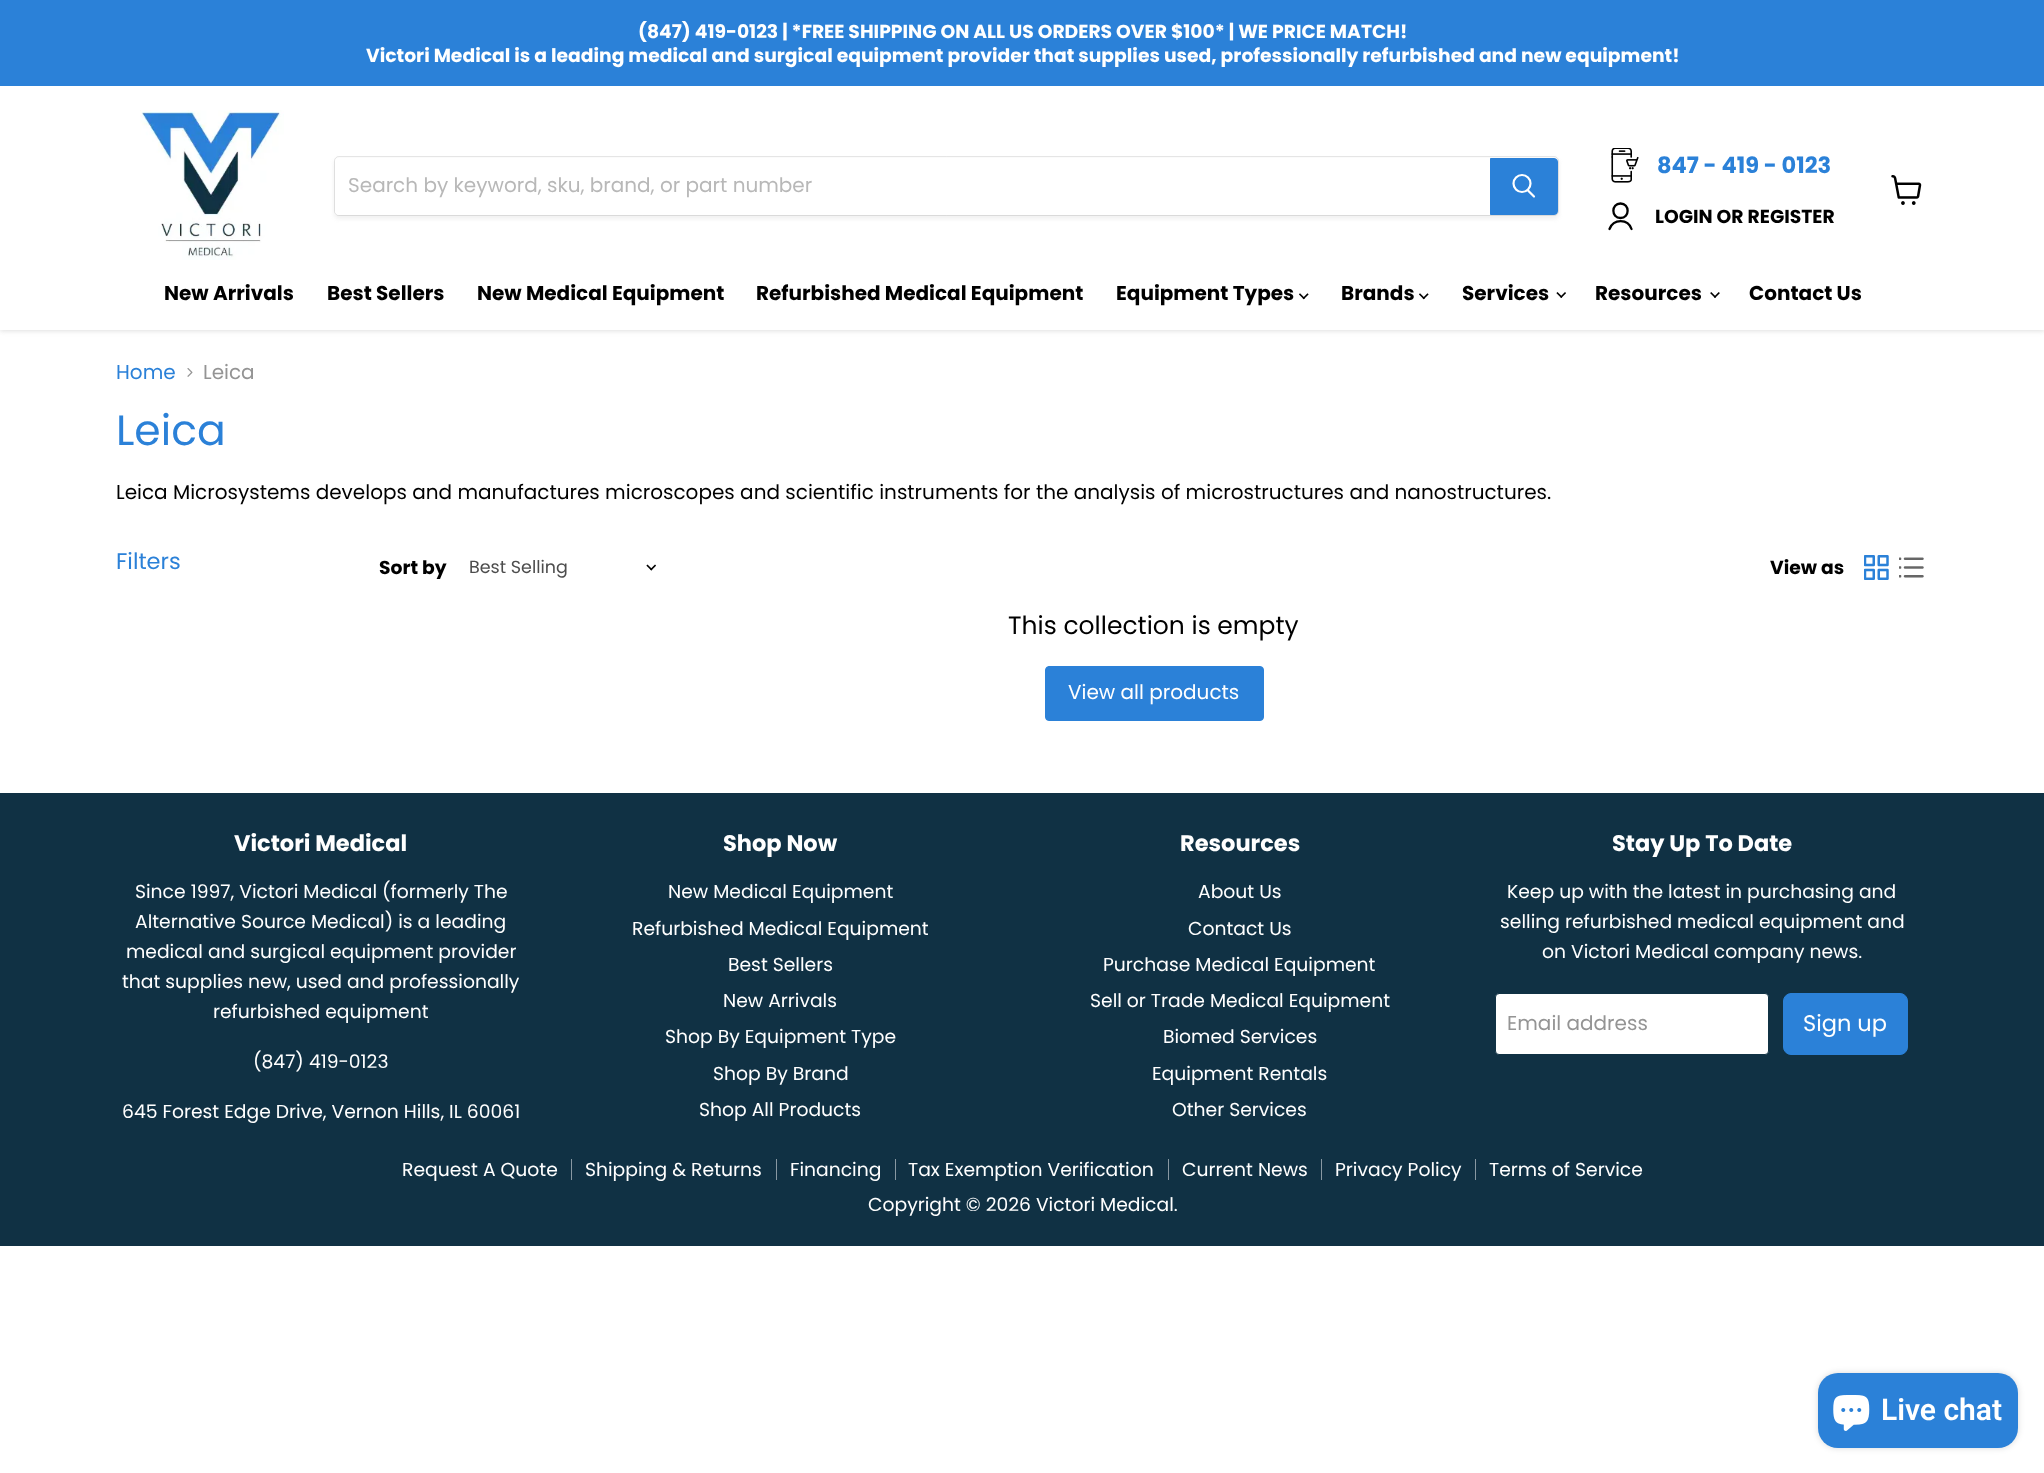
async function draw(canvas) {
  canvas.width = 2044;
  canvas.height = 1473;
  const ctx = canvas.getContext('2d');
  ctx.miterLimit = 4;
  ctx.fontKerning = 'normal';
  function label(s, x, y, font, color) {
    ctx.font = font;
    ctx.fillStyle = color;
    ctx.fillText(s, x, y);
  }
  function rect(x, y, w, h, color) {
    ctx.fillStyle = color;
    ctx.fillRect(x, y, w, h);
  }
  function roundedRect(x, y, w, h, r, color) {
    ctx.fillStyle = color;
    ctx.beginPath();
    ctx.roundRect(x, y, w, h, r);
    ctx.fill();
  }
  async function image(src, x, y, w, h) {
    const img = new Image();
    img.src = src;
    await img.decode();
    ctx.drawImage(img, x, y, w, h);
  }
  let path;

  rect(0, 0, 2044, 1473, '#fff');
  ctx.fillStyle = '#80808040';
  ctx.filter = 'blur(2.5px)';
  ctx.beginPath();
  ctx.rect(0, 88, 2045, 243);
  ctx.fill();
  ctx.filter = 'none';
  rect(0, 0, 2044, 86, '#2b81d8');
  label('(847) 419-0123 | *FREE SHIPPING ON ALL US ORDERS OVER $100* | WE PRICE MATCH!', 638, 38, 'bold 18.75px Poppins', '#fff');
  label('Victori Medical is a leading medical and surgical equipment provider that supplies used, professionally refurbished and new equipment!', 366, 62, 'bold 18.75px Poppins', '#fff');
  rect(0, 86, 2044, 244, '#fff');
  await image('assets/img1.png', 140, 110, 144, 150);
  ctx.fillStyle = '#8080801c';
  ctx.filter = 'blur(2px)';
  ctx.beginPath();
  ctx.roundRect(334, 159, 1225, 60, 5);
  ctx.fill();
  ctx.filter = 'none';
  ctx.beginPath();
  ctx.roundRect(334.5, 156.5, 1224, 59, 4.5);
  ctx.strokeStyle = '#80808033';
  ctx.stroke();
  ctx.fillStyle = '#fff';
  ctx.beginPath();
  ctx.roundRect(335, 158, 1155, 57, [4, 0, 0, 4]);
  ctx.fill();
  label('Search by keyword, sku, brand, or part number', 348, 192, '20px Poppins', '#b8b8b8');
  ctx.fillStyle = '#2b81d8';
  ctx.beginPath();
  ctx.roundRect(1490.5, 158.5, 67, 56, [0, 3.5, 3.5, 0]);
  ctx.fill();
  ctx.strokeStyle = '#2b81d8';
  ctx.stroke();
  path = new Path2D('M1534 196.5L1528 190.5');
  ctx.strokeStyle = '#fff';
  ctx.lineWidth = 2.2;
  ctx.lineCap = 'round';
  ctx.stroke(path);
  ctx.beginPath();
  ctx.arc(1522, 183.5, 8.5, 0, 2 * Math.PI);
  ctx.stroke();
  await image('assets/img2.png', 1611, 148, 28, 35);
  label('847 - 419 - 0123', 1657, 173, 'bold 22.5px Poppins', '#2b81d8');
  await image('assets/img3.png', 1891, 175, 31, 30);
  path = new Path2D('M1620.5 218C1630 218 1630 203.5 1620.5 203.5C1611 203.5 1611 218 1620.5 218ZM1631.5 229C1628 218.5 1613.5 218.5 1609.5 229');
  ctx.strokeStyle = '#000';
  ctx.lineWidth = 2.3;
  ctx.lineJoin = 'round';
  ctx.stroke(path);
  label('LOGIN OR REGISTER', 1655, 223, 'bold 18.75px Poppins', '#000');
  label('New Arrivals', 164, 300, 'bold 20px Poppins', '#000');
  label('Best Sellers', 327, 300, 'bold 20px Poppins', '#000');
  label('New Medical Equipment', 477, 300, 'bold 20px Poppins', '#000');
  label('Refurbished Medical Equipment', 756, 300, 'bold 20px Poppins', '#000');
  label('Equipment Types', 1116, 300, 'bold 20px Poppins', '#000');
  await image('assets/img4.png', 1299, 293, 10, 7);
  label('Brands', 1341, 300, 'bold 20px Poppins', '#000');
  await image('assets/img4.png', 1419, 293, 10, 7);
  label('Services', 1462, 300, 'bold 20px Poppins', '#000');
  await image('assets/img5.png', 1556, 292, 10, 6);
  label('Resources', 1595, 300, 'bold 20px Poppins', '#000');
  await image('assets/img6.png', 1710, 292, 10, 6);
  label('Contact Us', 1749, 300, 'bold 20px Poppins', '#000');
  label('Home', 116, 379, '20px Poppins', '#2b81d8');
  await image('assets/img7.png', 187, 368, 6, 9);
  label('Leica', 203, 379, '20px Poppins', '#949494');
  label('Leica', 116, 445, '42.5px Poppins', '#2b81d8');
  label('Leica Microsystems develops and manufactures microscopes and scientific instruments for the analysis of microstructures and nanostructures.', 116, 499, '20px Poppins', '#000');
  label('Filters', 116, 569, '22.5px Poppins', '#2b81d8');
  label('Sort by', 379, 574, 'bold 18.75px Poppins', '#000');
  label('Best Selling', 469, 573, '17.5px Poppins', '#4d4d4d');
  await image('assets/img8.png', 646, 564, 10, 7);
  label('View as', 1770, 574, 'bold 18.75px Poppins', '#000');
  await image('assets/img9.png', 1864, 555, 25, 25);
  await image('assets/img10.png', 1899, 557, 25, 21);
  label('This collection is empty', 1008, 634, '25px Poppins', '#000');
  ctx.fillStyle = '#2b81d8';
  ctx.beginPath();
  ctx.roundRect(1045.5, 666.5, 218, 54, 3.5);
  ctx.fill();
  ctx.strokeStyle = '#2b81d8';
  ctx.lineWidth = 1;
  ctx.lineJoin = 'miter';
  ctx.stroke();
  label('View all products', 1068, 699, '20px Poppins', '#fff');
  rect(0, 793, 2044, 453, '#103144');
  label('Victori Medical', 234, 851, 'bold 22.5px Poppins', '#fff');
  label('Since 1997, Victori Medical (formerly The', 135, 898, '18.75px Poppins', '#fff');
  label('Alternative Source Medical) is a leading', 135, 928, '18.75px Poppins', '#fff');
  label('medical and surgical equipment provider', 126, 958, '18.75px Poppins', '#fff');
  label('that supplies new, used and professionally', 122, 988, '18.75px Poppins', '#fff');
  label('refurbished equipment', 213, 1018, '18.75px Poppins', '#fff');
  label('(847) 419-0123', 253, 1068, '18.75px Poppins', '#fff');
  label('645 Forest Edge Drive, Vernon Hills, IL 60061', 122, 1118, '18.75px Poppins', '#fff');
  label('Shop Now', 723, 851, 'bold 22.5px Poppins', '#fff');
  label('New Medical Equipment', 668, 898, '18.75px Poppins', '#fff');
  label('Refurbished Medical Equipment', 632, 935, '18.75px Poppins', '#fff');
  label('Best Sellers', 728, 971, '18.75px Poppins', '#fff');
  label('New Arrivals', 723, 1007, '18.75px Poppins', '#fff');
  label('Shop By Equipment Type', 665, 1043, '18.75px Poppins', '#fff');
  label('Shop By Brand', 713, 1080, '18.75px Poppins', '#fff');
  label('Shop All Products', 699, 1116, '18.75px Poppins', '#fff');
  label('Resources', 1180, 851, 'bold 22.5px Poppins', '#fff');
  label('About Us', 1198, 898, '18.75px Poppins', '#fff');
  label('Contact Us', 1188, 935, '18.75px Poppins', '#fff');
  label('Purchase Medical Equipment', 1103, 971, '18.75px Poppins', '#fff');
  label('Sell or Trade Medical Equipment', 1090, 1007, '18.75px Poppins', '#fff');
  label('Biomed Services', 1163, 1043, '18.75px Poppins', '#fff');
  label('Equipment Rentals', 1152, 1080, '18.75px Poppins', '#fff');
  label('Other Services', 1172, 1116, '18.75px Poppins', '#fff');
  label('Stay Up To Date', 1612, 851, 'bold 22.5px Poppins', '#fff');
  label('Keep up with the latest in purchasing and', 1507, 898, '18.75px Poppins', '#fff');
  label('selling refurbished medical equipment and', 1500, 928, '18.75px Poppins', '#fff');
  label('on Victori Medical company news.', 1542, 958, '18.75px Poppins', '#fff');
  ctx.beginPath();
  ctx.roundRect(1495.5, 993.5, 273, 61, 3.5);
  ctx.fill();
  ctx.strokeStyle = '#103244';
  ctx.stroke();
  label('Email address', 1507, 1030, '20px Poppins', '#949494');
  ctx.fillStyle = '#2b81d8';
  ctx.beginPath();
  ctx.roundRect(1783.5, 993.5, 124, 61, 7.5);
  ctx.fill();
  ctx.strokeStyle = '#2b81d8';
  ctx.stroke();
  label('Sign up', 1803, 1031, '22.5px Poppins', '#fff');
  rect(571, 1159, 1, 21, '#8898a2');
  label('Request A Quote', 402, 1176, '18.75px Poppins', '#fff');
  rect(776, 1159, 1, 21, '#8898a2');
  label('Shipping & Returns', 585, 1176, '18.75px Poppins', '#fff');
  rect(895, 1159, 1, 21, '#8898a2');
  label('Financing', 790, 1176, '18.75px Poppins', '#fff');
  rect(1168, 1159, 1, 21, '#8898a2');
  label('Tax Exemption Verification', 908, 1176, '18.75px Poppins', '#fff');
  rect(1321, 1159, 1, 21, '#8898a2');
  label('Current News', 1182, 1176, '18.75px Poppins', '#fff');
  rect(1475, 1159, 1, 21, '#8898a2');
  label('Privacy Policy', 1335, 1176, '18.75px Poppins', '#fff');
  label('Terms of Service', 1489, 1176, '18.75px Poppins', '#fff');
  label('Copyright © 2026 Victori Medical.', 868, 1211, '18.75px Poppins', '#fff');
  ctx.fillStyle = '#00000026';
  ctx.filter = 'blur(3px)';
  ctx.beginPath();
  ctx.roundRect(1818, 1373, 200, 75, 20);
  ctx.fill();
  ctx.filter = 'none';
  roundedRect(1818, 1373, 200, 75, 20, '#2b81d8');
  await image('assets/img11.png', 1833, 1395, 37, 36);
  label('Live chat', 1881, 1420, '600 30px Roboto', '#fff');
}

draw(document.querySelector('canvas'));
